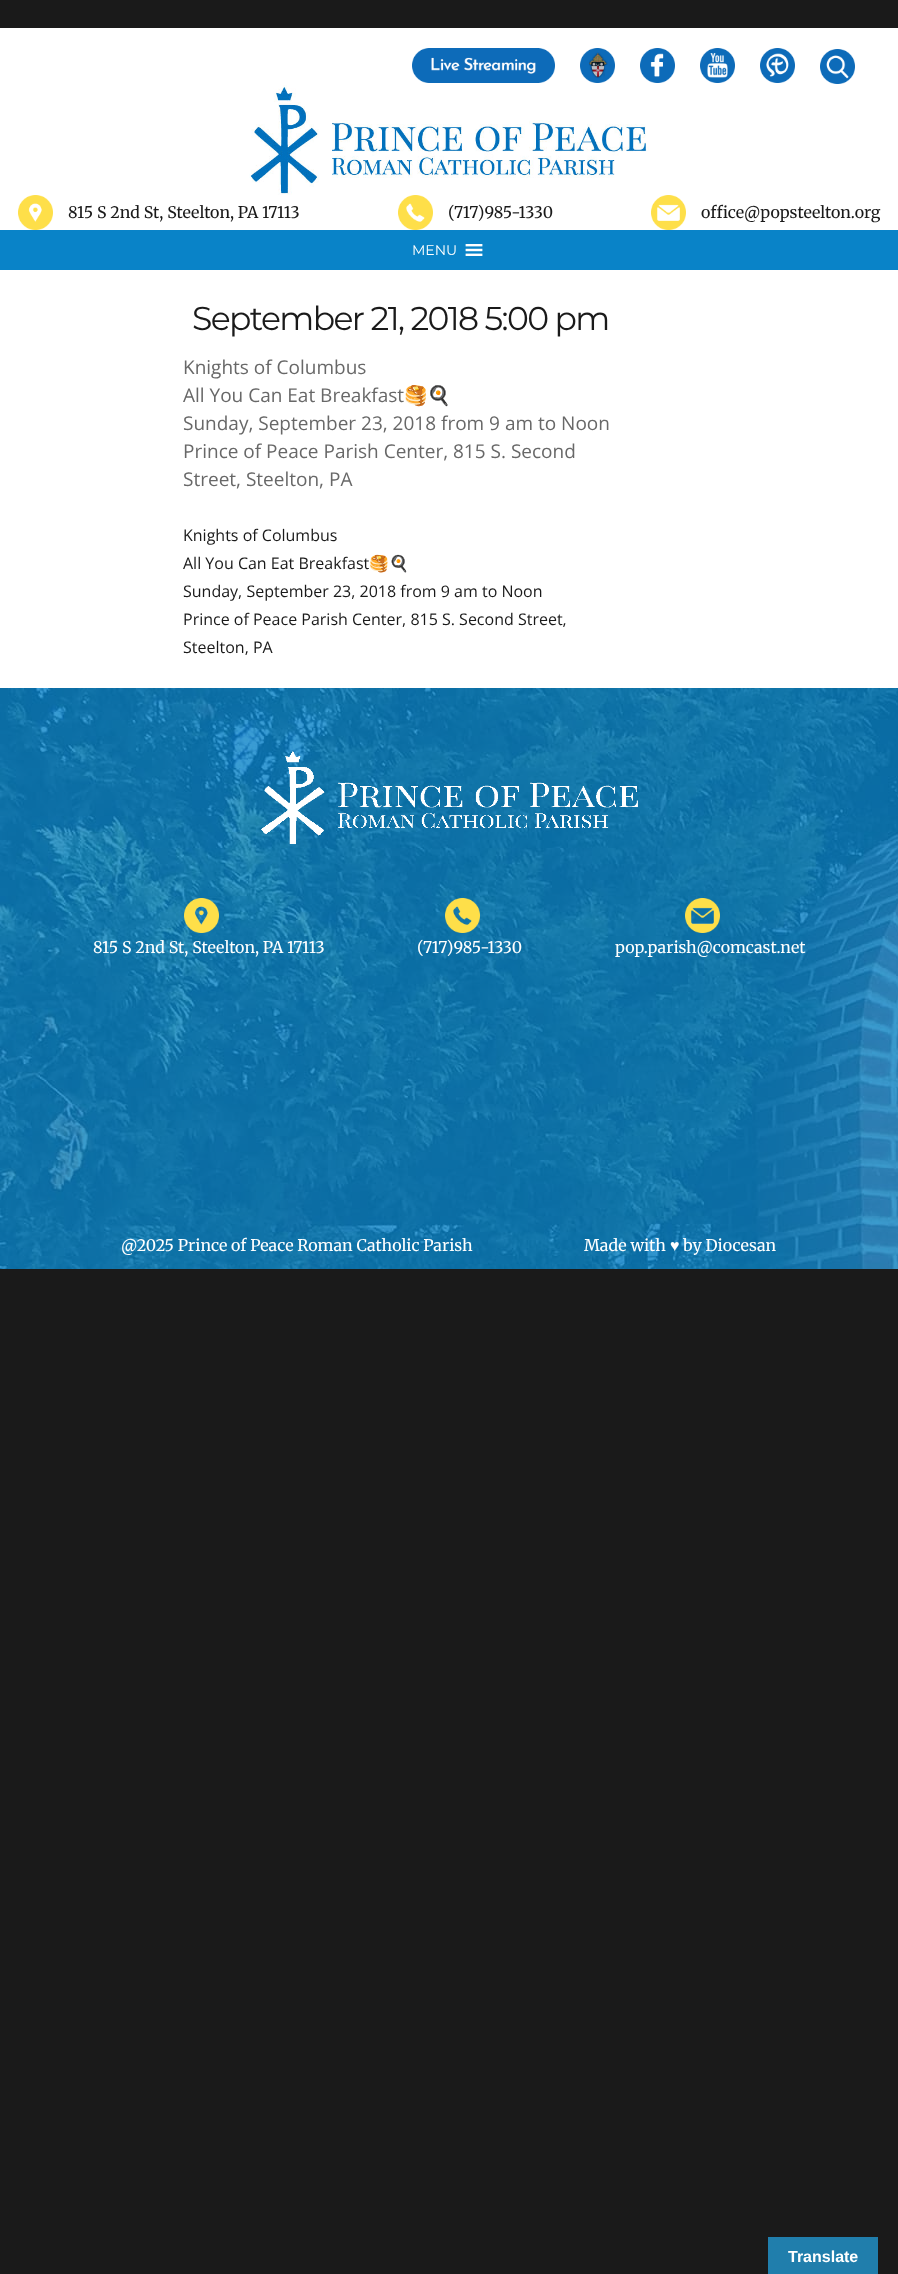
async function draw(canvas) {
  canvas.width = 898;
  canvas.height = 2274;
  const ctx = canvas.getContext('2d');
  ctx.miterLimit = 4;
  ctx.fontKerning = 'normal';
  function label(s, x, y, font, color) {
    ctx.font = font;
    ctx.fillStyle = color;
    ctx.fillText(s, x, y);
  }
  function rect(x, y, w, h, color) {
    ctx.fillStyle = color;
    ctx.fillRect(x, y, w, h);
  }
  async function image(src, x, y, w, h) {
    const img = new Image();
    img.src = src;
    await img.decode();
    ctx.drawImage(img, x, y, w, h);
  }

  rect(0, 0, 898, 2274, '#1a1a1a');
  rect(0, 28, 898, 660, '#fff');
  await image('assets/img1.png', 412, 48, 143, 35);
  await image('assets/img2.png', 580, 48, 35, 35);
  await image('assets/img3.png', 640, 48, 35, 35);
  await image('assets/img4.png', 700, 48, 35, 35);
  await image('assets/img5.png', 760, 48, 35, 35);
  await image('assets/img6.png', 820, 49, 35, 35);
  await image('assets/img7.png', 249, 85, 400, 110);
  await image('assets/img8.png', 18, 195, 35, 35);
  label('815 S 2nd St, Steelton, PA 17113', 68, 218, '16px Merriweather', '#1a1a1a');
  await image('assets/img9.png', 398, 195, 35, 35);
  label('(717)985-1330', 448, 218, '16px Merriweather', '#1a1a1a');
  await image('assets/img10.png', 651, 195, 35, 35);
  label('office@popsteelton.org', 701, 218, '16px Merriweather', '#1a1a1a');
  rect(0, 230, 898, 40, '#0983c8');
  label('MENU', 412, 255, '100 14px Montserrat', '#fff');
  await image('assets/img11.png', 465, 244, 18, 12);
  ctx.letterSpacing = '-1.6px';
  label('September 21, 2018 5:00 pm', 192, 330, '100 33px Montserrat', '#1a1a1a');
  ctx.letterSpacing = '0px';
  label('Knights of Columbus', 183, 374, '19px Open Sans', '#686868');
  label('All You Can Eat Breakfast', 183, 402, '19px Open Sans', '#686868');
  label('🥞🍳', 404, 402, '19px Noto Color Emoji', '#686868');
  label('Sunday, September 23, 2018 from 9 am to Noon', 183, 430, '19px Open Sans', '#686868');
  label('Prince of Peace Parish Center, 815 S. Second', 183, 458, '19px Open Sans', '#686868');
  label('Street, Steelton, PA', 183, 486, '19px Open Sans', '#686868');
  label('Knights of Columbus', 183, 541, '16px Open Sans', '#1a1a1a');
  label('All You Can Eat Breakfast', 183, 569, '16px Open Sans', '#1a1a1a');
  label('🥞🍳', 369, 569, '16px Noto Color Emoji', '#1a1a1a');
  label('Sunday, September 23, 2018 from 9 am to Noon', 183, 597, '16px Open Sans', '#1a1a1a');
  label('Prince of Peace Parish Center, 815 S. Second Street,', 183, 625, '16px Open Sans', '#1a1a1a');
  label('Steelton, PA', 183, 653, '16px Open Sans', '#1a1a1a');
  await image('assets/img12.png', 0, 688, 898, 581);
  await image('assets/img13.png', 261, 751, 377, 93);
  await image('assets/img14.png', 184, 898, 35, 35);
  label('815 S 2nd St, Steelton, PA 17113', 93, 953, '16px Merriweather', '#fff');
  await image('assets/img15.png', 445, 898, 35, 35);
  label('(717)985-1330', 417, 953, '16px Merriweather', '#fff');
  await image('assets/img16.png', 685, 898, 35, 35);
  label('pop.parish@comcast.net', 615, 953, '16px Merriweather', '#fff');
  label('@2025 Prince of Peace Roman Catholic Parish', 121, 1251, '16px Merriweather', '#fff');
  label('Made with', 584, 1251, '16px Merriweather', '#fff');
  label('♥', 670, 1251, '16px Liberation Serif', '#fff');
  label('by Diocesan', 683, 1251, '16px Merriweather', '#fff');
  rect(768, 2237, 110, 37, '#207eac');
  label('Translate', 788, 2262, 'bold 16px Liberation Sans', '#fff');
}

draw(document.querySelector('canvas'));
